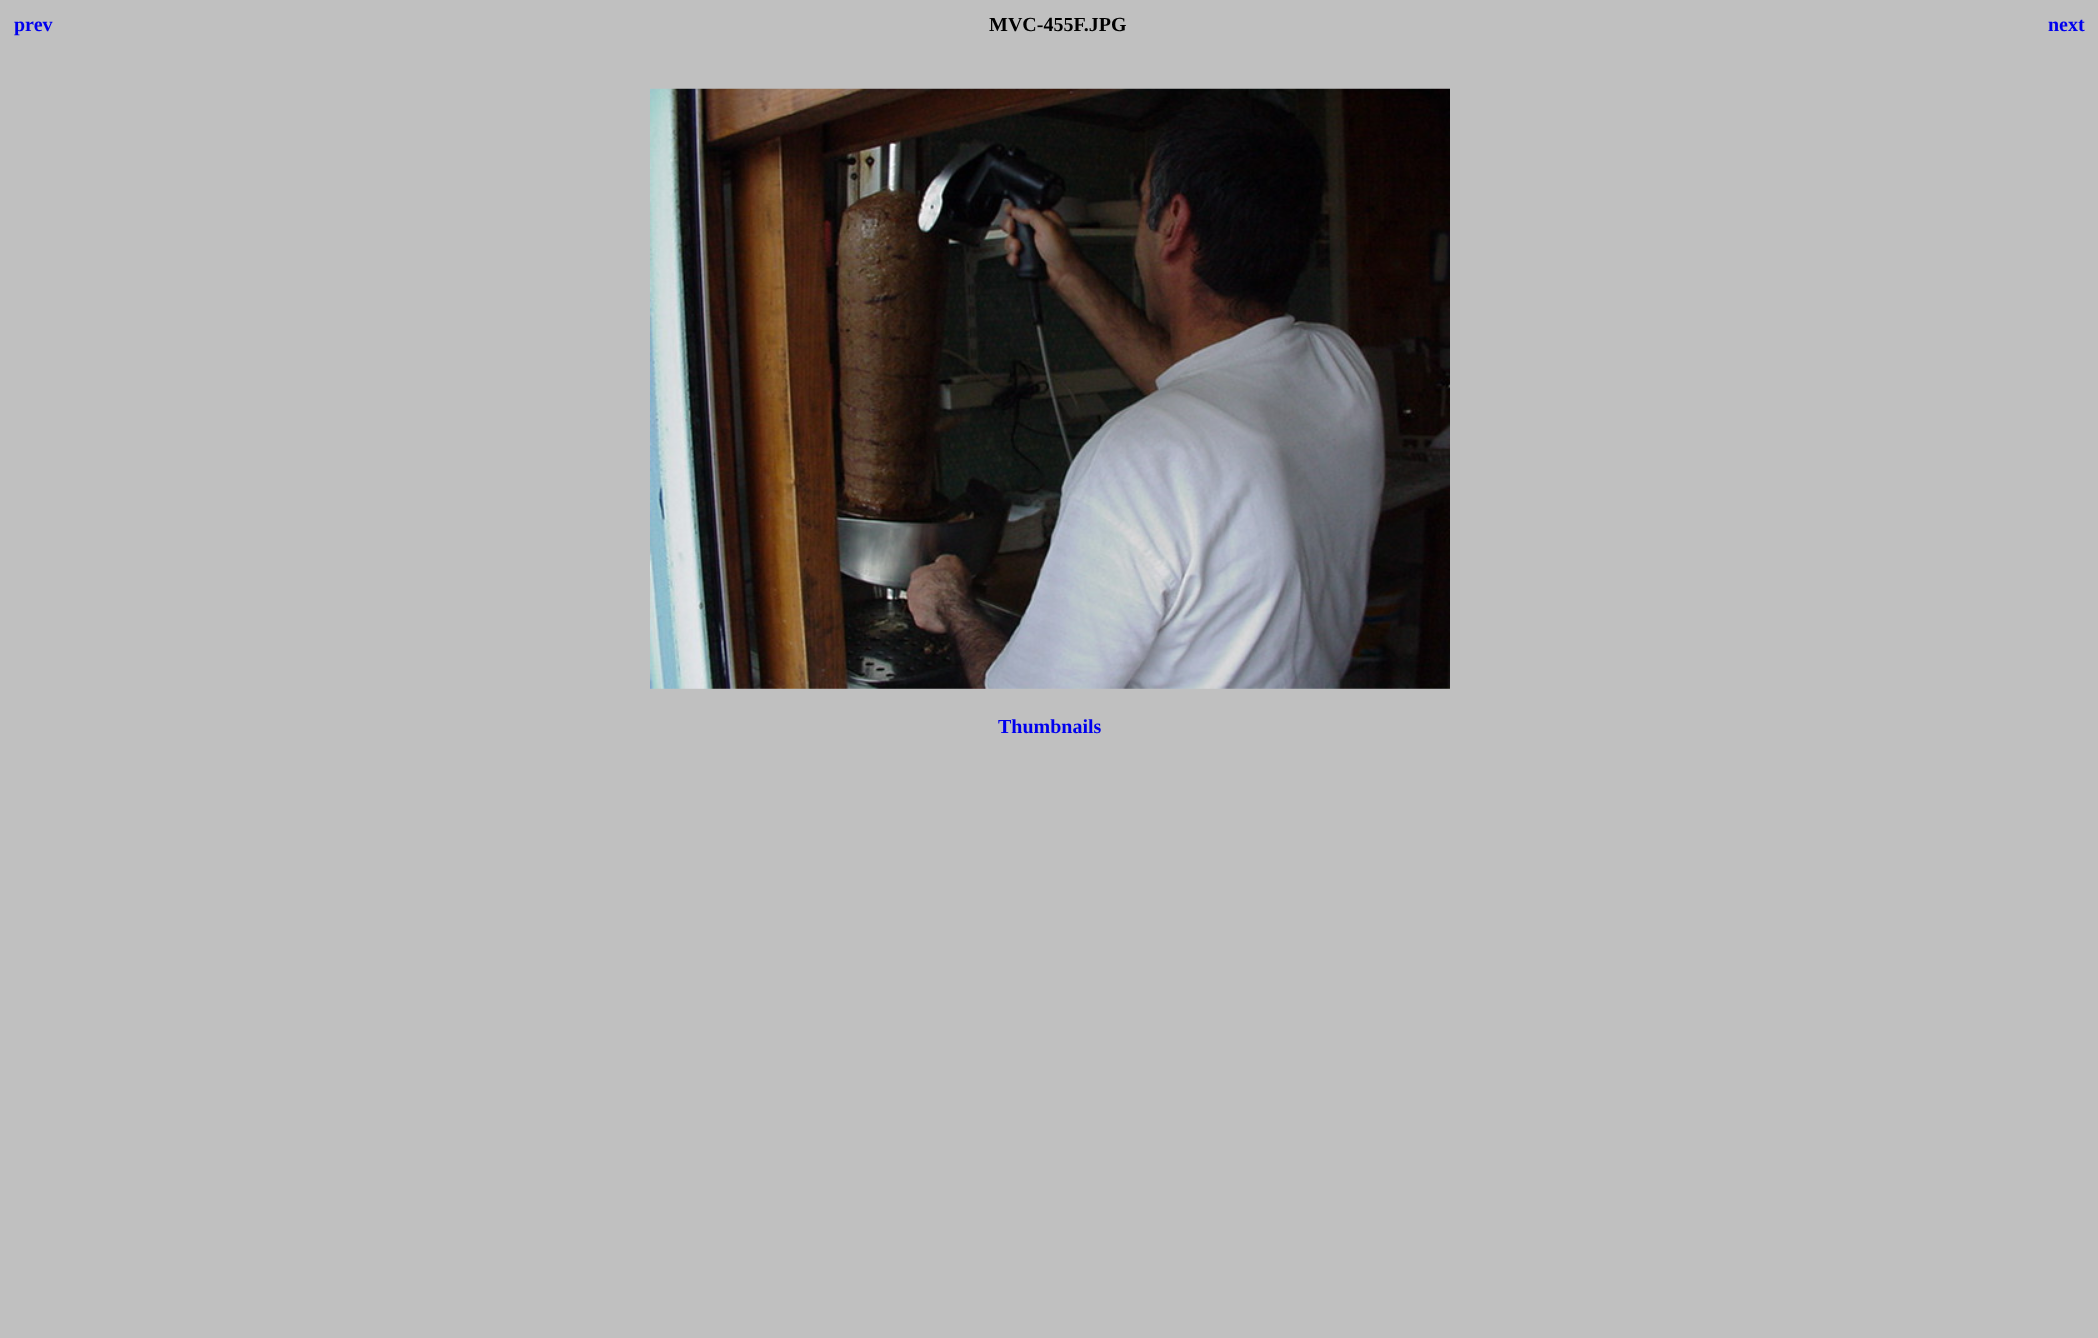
async function draw(canvas) {
  canvas.width = 2098;
  canvas.height = 1338;
  const ctx = canvas.getContext('2d');
  ctx.miterLimit = 4;
  ctx.fontKerning = 'normal';
  function label(s, x, y, font, color) {
    ctx.font = font;
    ctx.fillStyle = color;
    ctx.fillText(s, x, y);
  }
  function rect(x, y, w, h, color) {
    ctx.fillStyle = color;
    ctx.fillRect(x, y, w, h);
  }
  async function image(src, x, y, w, h) {
    const img = new Image();
    img.src = src;
    await img.decode();
    ctx.drawImage(img, x, y, w, h);
  }

  rect(0, 0, 2098, 1338, '#c0c0c0');
  label('prev', 14, 31, 'bold 20px Liberation Serif', '#00e');
  label('MVC-455F.JPG', 989, 31, 'bold 20px Liberation Serif', '#000');
  label('next', 2048, 31, 'bold 20px Liberation Serif', '#00e');
  await image('assets/img1.png', 650, 88, 800, 601);
  label('Thumbnails', 998, 733, 'bold 20px Liberation Serif', '#00e');
}

draw(document.querySelector('canvas'));
